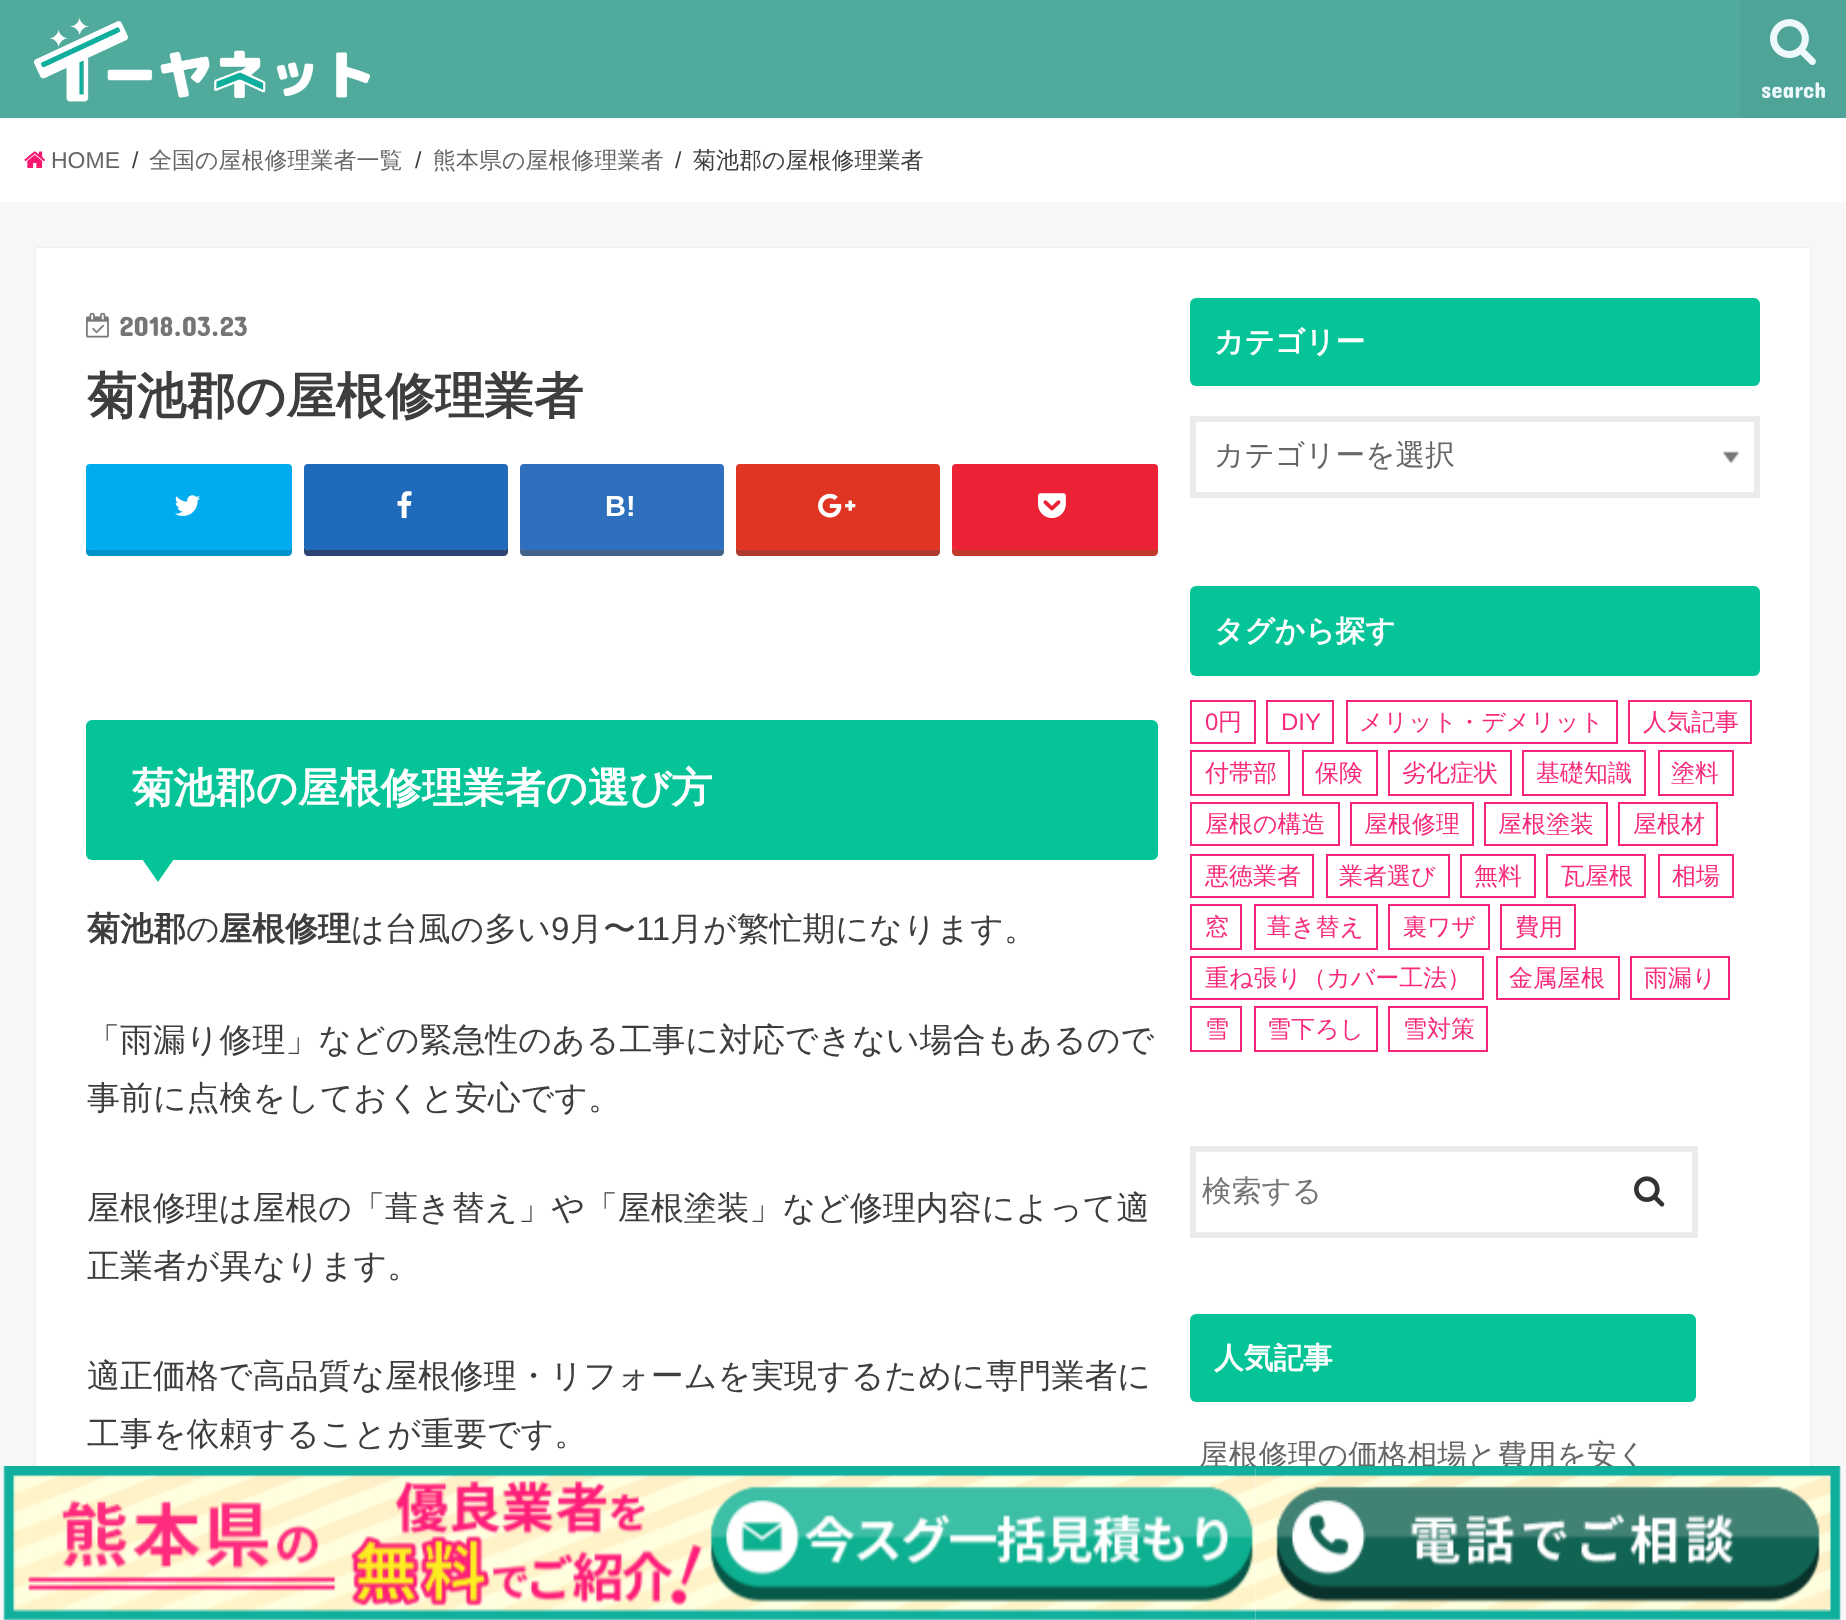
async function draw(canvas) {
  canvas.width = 1846;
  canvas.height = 1620;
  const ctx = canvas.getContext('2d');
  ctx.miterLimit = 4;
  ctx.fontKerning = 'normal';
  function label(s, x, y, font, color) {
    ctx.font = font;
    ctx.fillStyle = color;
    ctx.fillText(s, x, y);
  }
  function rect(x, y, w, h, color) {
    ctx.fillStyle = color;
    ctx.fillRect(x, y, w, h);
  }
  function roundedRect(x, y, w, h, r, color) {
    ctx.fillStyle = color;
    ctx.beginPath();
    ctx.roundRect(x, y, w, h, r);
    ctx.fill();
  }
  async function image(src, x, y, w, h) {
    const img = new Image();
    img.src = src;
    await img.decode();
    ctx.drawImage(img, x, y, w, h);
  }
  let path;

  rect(0, 0, 1846, 1620, '#f7f7f7');
  rect(0, 0, 1740, 118, '#50ab9d');
  await image('assets/img1.png', 33, 17, 338, 85);
  rect(1740, 0, 106, 118, '#4da497');
  await image('assets/img2.png', 1770, 19, 46, 46);
  label('search', 1761, 98, '23px Concert One', '#edf9fc');
  rect(0, 118, 1846, 84, '#fff');
  await image('assets/img3.png', 24, 151, 21, 17);
  label('HOME', 51, 168, '23px Liberation Sans', '#666');
  label('/', 132, 168, '23px Liberation Sans', '#3e3e3e');
  label('全国の屋根修理業者一覧', 149, 168, '500 23px WenQuanYi Zen Hei', '#666');
  label('/', 415, 168, '23px Liberation Sans', '#3e3e3e');
  label('熊本県の屋根修理業者', 433, 168, '500 23px WenQuanYi Zen Hei', '#666');
  label('/', 675, 168, '23px Liberation Sans', '#3e3e3e');
  label('菊池郡の屋根修理業者', 693, 168, '500 23px WenQuanYi Zen Hei', '#3e3e3e');
  ctx.fillStyle = '#ddd';
  ctx.filter = 'blur(1px)';
  ctx.beginPath();
  ctx.rect(36, 248, 1774, 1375);
  ctx.fill();
  ctx.filter = 'none';
  rect(36, 248, 1774, 1372, '#fff');
  await image('assets/img4.png', 86, 312, 23, 26);
  label('2018.03.23', 119, 336, '28px Concert One', '#757575');
  label('菊池郡の屋根修理業者', 87, 413, 'bold 49.5px WenQuanYi Zen Hei', '#3e3e3e');
  ctx.fillStyle = '#0092ca';
  path = new Path2D('M86 546V552C86 554 88 556 90 556H288C290 556 292 554 292 552V546C292 548 290 550 288 550H90C88 550 86 548 86 546Z');
  ctx.fill(path);
  roundedRect(86, 464, 206, 86, 4, '#00acee');
  await image('assets/img5.png', 175, 495, 26, 21);
  ctx.fillStyle = '#2c4373';
  path = new Path2D('M304 546V552C304 554 306 556 308 556H504C506 556 508 554 508 552V546C508 548 506 550 504 550H308C306 550 304 548 304 546Z');
  ctx.fill(path);
  roundedRect(304, 464, 204, 86, 4, '#1f6aba');
  await image('assets/img6.png', 397, 491, 15, 28);
  ctx.fillStyle = '#43638b';
  path = new Path2D('M520 546V552C520 554 522 556 524 556H720C722 556 724 554 724 552V546C724 548 722 550 720 550H524C522 550 520 548 520 546Z');
  ctx.fill(path);
  roundedRect(520, 464, 204, 86, 4, '#2f70be');
  label('B!', 605, 516, 'bold 29px Liberation Sans', '#fff');
  ctx.fillStyle = '#ad3a2d';
  path = new Path2D('M736 546V552C736 554 738 556 740 556H936C938 556 940 554 940 552V546C940 548 938 550 936 550H740C738 550 736 548 736 546Z');
  ctx.fill(path);
  roundedRect(736, 464, 204, 86, 4, '#df3522');
  await image('assets/img7.png', 818, 493, 38, 25);
  ctx.fillStyle = '#c0392b';
  path = new Path2D('M952 546V552C952 554 954 556 956 556H1154C1156 556 1158 554 1158 552V546C1158 548 1156 550 1154 550H956C954 550 952 548 952 546Z');
  ctx.fill(path);
  roundedRect(952, 464, 206, 86, 4, '#ec2136');
  await image('assets/img8.png', 1038, 493, 28, 26);
  roundedRect(86, 720, 1072, 140, 6, '#05c497');
  label('菊池郡の屋根修理業者の選び方', 132, 802, 'bold 41.25px WenQuanYi Zen Hei', '#fff');
  ctx.fillStyle = '#05c497';
  path = new Path2D('M140 856H176L158 882Z');
  ctx.fill(path);
  label('菊池郡', 87, 940, 'bold 32.95px WenQuanYi Zen Hei', '#3e3e3e');
  label('の', 186, 940, '500 32.95px WenQuanYi Zen Hei', '#3e3e3e');
  label('屋根修理', 219, 940, 'bold 32.95px WenQuanYi Zen Hei', '#3e3e3e');
  label('は台風の多い', 351, 940, '500 32.95px WenQuanYi Zen Hei', '#3e3e3e');
  label('9', 551, 940, '32.95px Liberation Sans', '#3e3e3e');
  label('月〜', 570, 940, '500 32.95px WenQuanYi Zen Hei', '#3e3e3e');
  label('11', 636, 940, '32.95px Liberation Sans', '#3e3e3e');
  label('月が繁忙期になります。', 670, 940, '500 32.95px WenQuanYi Zen Hei', '#3e3e3e');
  label('「雨漏り修理」などの緊急性のある工事に対応できない場合もあるので', 87, 1051, '500 32.95px WenQuanYi Zen Hei', '#3e3e3e');
  label('事前に点検をしておくと安心です。', 87, 1109, '500 32.95px WenQuanYi Zen Hei', '#3e3e3e');
  label('屋根修理は屋根の「葺き替え」や「屋根塗装」など修理内容によって適', 87, 1219, '500 32.95px WenQuanYi Zen Hei', '#3e3e3e');
  label('正業者が異なります。', 87, 1277, '500 32.95px WenQuanYi Zen Hei', '#3e3e3e');
  label('適正価格で高品質な屋根修理・リフォームを実現するために専門業者に', 87, 1387, '500 32.95px WenQuanYi Zen Hei', '#3e3e3e');
  label('工事を依頼することが重要です。', 87, 1445, '500 32.95px WenQuanYi Zen Hei', '#3e3e3e');
  path = new Path2D('M1190 1559H1696');
  ctx.strokeStyle = '#e5e5e5';
  ctx.lineWidth = 2;
  ctx.setLineDash([2, 2]);
  ctx.stroke(path);
  label('屋根修理の価格相場と費用を安く', 1199, 1465, '500 29.7px WenQuanYi Zen Hei', '#666');
  await image('assets/img9.png', 3, 1466, 1255, 154);
  await image('assets/img10.png', 1256, 1466, 585, 154);
  roundedRect(1190, 298, 570, 88, 6, '#05c497');
  label('カテゴリー', 1214, 352, 'bold 29.7px WenQuanYi Zen Hei', '#fff');
  await image('assets/img11.png', 1723, 450, 16, 14);
  path = new Path2D('M1193 419H1757V495H1193Z');
  ctx.strokeStyle = '#ebebeb';
  ctx.lineWidth = 6;
  ctx.setLineDash([]);
  ctx.stroke(path);
  label('カテゴリーを選択', 1214, 465, '500 29.7px WenQuanYi Zen Hei', '#666');
  roundedRect(1190, 586, 570, 90, 6, '#05c497');
  label('タグから探す', 1214, 641, 'bold 29.7px WenQuanYi Zen Hei', '#fff');
  ctx.strokeStyle = '#f72579';
  ctx.lineWidth = 2;
  ctx.strokeRect(1191, 701, 64, 42);
  label('0', 1205, 730, '24px Liberation Sans', '#f72a7c');
  label('円', 1218, 730, '500 24px WenQuanYi Zen Hei', '#f72a7c');
  ctx.strokeRect(1267, 701, 66, 42);
  label('DIY', 1281, 730, '24px Liberation Sans', '#f72a7c');
  ctx.strokeRect(1347, 701, 270, 42);
  label('メリット・デメリット', 1359, 730, '500 24px WenQuanYi Zen Hei', '#f72a7c');
  ctx.strokeRect(1629, 701, 122, 42);
  label('人気記事', 1643, 730, '500 24px WenQuanYi Zen Hei', '#f72a7c');
  ctx.strokeRect(1191, 751, 98, 44);
  label('付帯部', 1205, 781, '500 24px WenQuanYi Zen Hei', '#f72a7c');
  ctx.strokeRect(1303, 751, 74, 44);
  label('保険', 1315, 781, '500 24px WenQuanYi Zen Hei', '#f72a7c');
  ctx.strokeRect(1389, 751, 122, 44);
  label('劣化症状', 1402, 781, '500 24px WenQuanYi Zen Hei', '#f72a7c');
  ctx.strokeRect(1523, 751, 122, 44);
  label('基礎知識', 1536, 781, '500 24px WenQuanYi Zen Hei', '#f72a7c');
  ctx.strokeRect(1659, 751, 74, 44);
  label('塗料', 1671, 781, '500 24px WenQuanYi Zen Hei', '#f72a7c');
  ctx.strokeRect(1191, 803, 148, 42);
  label('屋根の構造', 1205, 832, '500 24px WenQuanYi Zen Hei', '#f72a7c');
  ctx.strokeRect(1351, 803, 122, 42);
  label('屋根修理', 1364, 832, '500 24px WenQuanYi Zen Hei', '#f72a7c');
  ctx.strokeRect(1485, 803, 122, 42);
  label('屋根塗装', 1498, 832, '500 24px WenQuanYi Zen Hei', '#f72a7c');
  ctx.strokeRect(1619, 803, 98, 42);
  label('屋根材', 1633, 832, '500 24px WenQuanYi Zen Hei', '#f72a7c');
  ctx.strokeRect(1191, 855, 122, 42);
  label('悪徳業者', 1205, 884, '500 24px WenQuanYi Zen Hei', '#f72a7c');
  ctx.strokeRect(1327, 855, 122, 42);
  label('業者選び', 1339, 884, '500 24px WenQuanYi Zen Hei', '#f72a7c');
  ctx.strokeRect(1461, 855, 74, 42);
  label('無料', 1474, 884, '500 24px WenQuanYi Zen Hei', '#f72a7c');
  ctx.strokeRect(1547, 855, 98, 42);
  label('瓦屋根', 1561, 884, '500 24px WenQuanYi Zen Hei', '#f72a7c');
  ctx.strokeRect(1659, 855, 74, 42);
  label('相場', 1672, 884, '500 24px WenQuanYi Zen Hei', '#f72a7c');
  ctx.strokeRect(1191, 905, 50, 44);
  label('窓', 1205, 935, '500 24px WenQuanYi Zen Hei', '#f72a7c');
  ctx.strokeRect(1255, 905, 122, 44);
  label('葺き替え', 1267, 935, '500 24px WenQuanYi Zen Hei', '#f72a7c');
  ctx.strokeRect(1389, 905, 100, 44);
  label('裏ワザ', 1403, 935, '500 24px WenQuanYi Zen Hei', '#f72a7c');
  ctx.strokeRect(1501, 905, 74, 44);
  label('費用', 1515, 935, '500 24px WenQuanYi Zen Hei', '#f72a7c');
  ctx.strokeRect(1191, 957, 292, 42);
  label('重ね張り（カバー工法）', 1205, 986, '500 24px WenQuanYi Zen Hei', '#f72a7c');
  ctx.strokeRect(1497, 957, 122, 42);
  label('金属屋根', 1509, 986, '500 24px WenQuanYi Zen Hei', '#f72a7c');
  ctx.strokeRect(1631, 957, 98, 42);
  label('雨漏り', 1644, 986, '500 24px WenQuanYi Zen Hei', '#f72a7c');
  ctx.strokeRect(1191, 1007, 50, 44);
  label('雪', 1205, 1037, '500 24px WenQuanYi Zen Hei', '#f72a7c');
  ctx.strokeRect(1255, 1007, 122, 44);
  label('雪下ろし', 1267, 1037, '500 24px WenQuanYi Zen Hei', '#f72a7c');
  ctx.strokeRect(1389, 1007, 98, 44);
  label('雪対策', 1403, 1037, '500 24px WenQuanYi Zen Hei', '#f72a7c');
  path = new Path2D('M1193 1149H1695V1235H1193Z');
  ctx.strokeStyle = '#ebebeb';
  ctx.lineWidth = 6;
  ctx.stroke(path);
  label('検索する', 1202, 1201, '500 29.7px WenQuanYi Zen Hei', '#757575');
  await image('assets/img12.png', 1634, 1176, 31, 31);
  roundedRect(1190, 1314, 506, 88, 6, '#05c497');
  label('人気記事', 1214, 1368, 'bold 29.7px WenQuanYi Zen Hei', '#fff');
}

draw(document.querySelector('canvas'));
